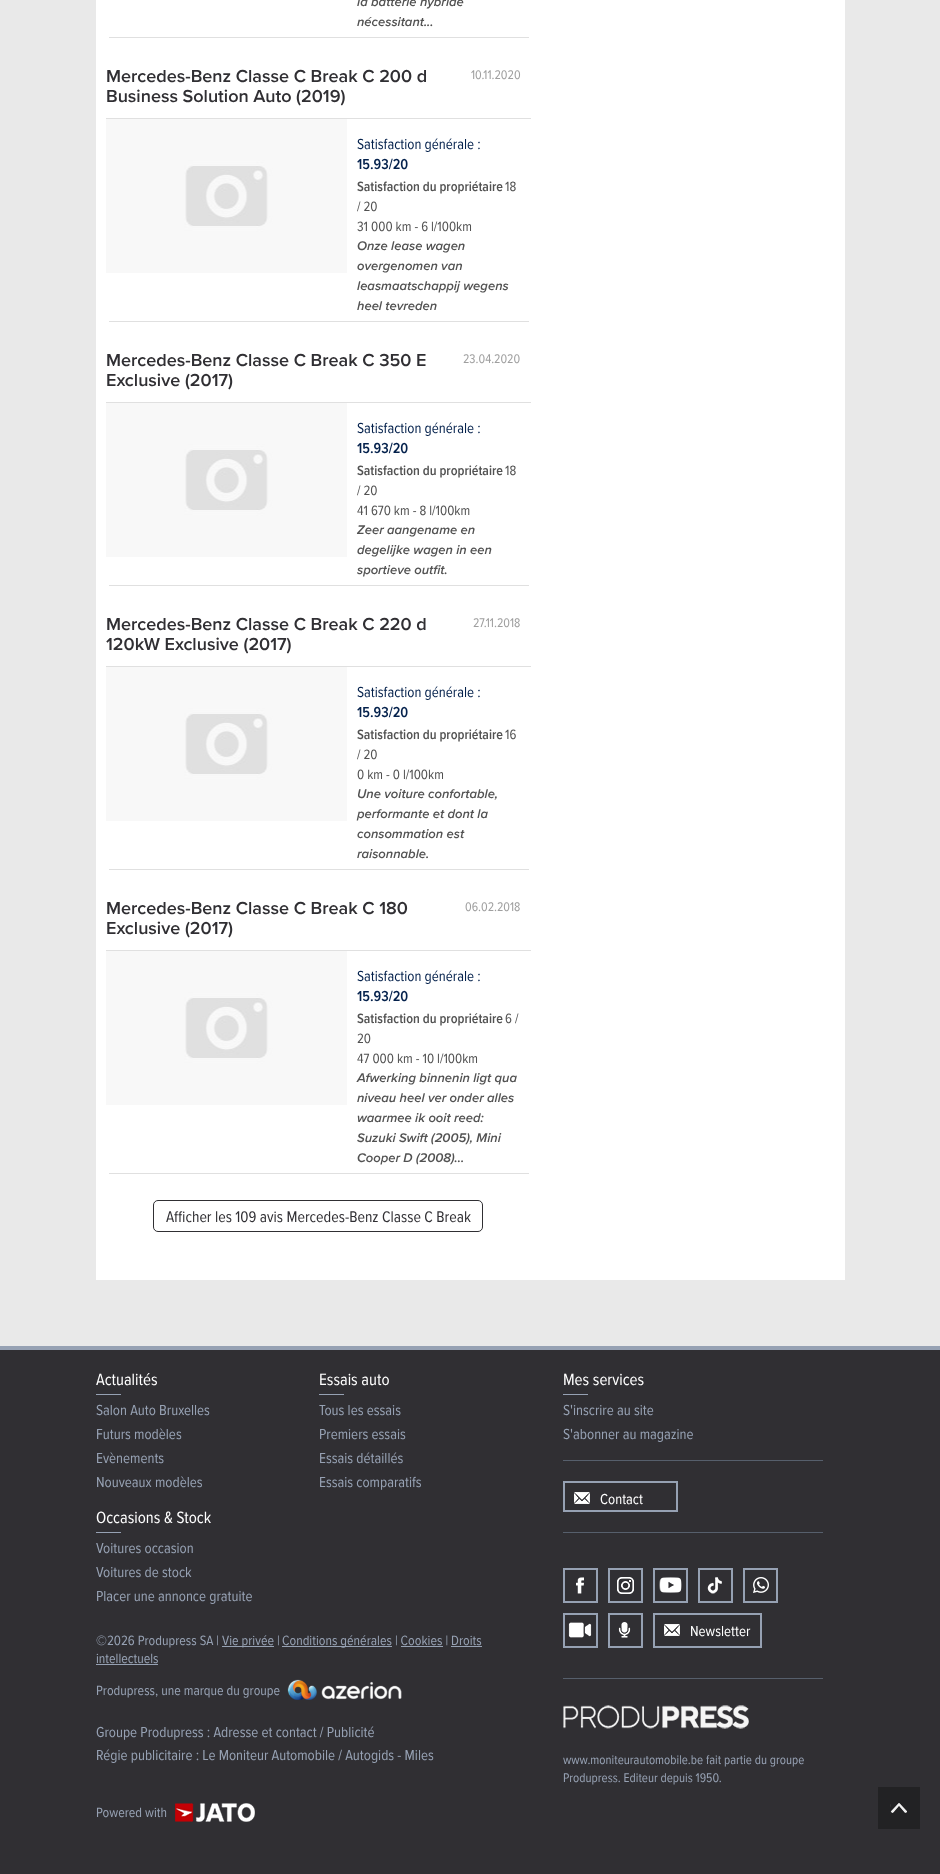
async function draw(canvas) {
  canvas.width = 940;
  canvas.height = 1874;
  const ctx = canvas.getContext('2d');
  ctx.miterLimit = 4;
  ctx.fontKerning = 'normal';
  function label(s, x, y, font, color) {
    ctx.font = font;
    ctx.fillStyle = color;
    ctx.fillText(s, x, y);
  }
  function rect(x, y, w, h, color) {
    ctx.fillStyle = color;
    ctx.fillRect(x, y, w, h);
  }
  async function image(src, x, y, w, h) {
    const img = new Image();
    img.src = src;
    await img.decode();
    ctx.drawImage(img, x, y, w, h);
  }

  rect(0, 0, 940, 1874, '#e9e9e9');
  rect(96, 0, 749, 1280, '#fff');
  rect(109, 37, 420, 1, '#e0e0e0');
  label('la batterie hybride', 357, 6, 'italic 600 13px Proxima Nova', '#525252');
  label('nécessitant...', 357, 26, 'italic 600 13px Proxima Nova', '#525252');
  rect(109, 321, 420, 1, '#e0e0e0');
  rect(106, 118, 425, 1, '#e0e0e0');
  label('Mercedes-Benz Classe C Break C 200 d', 106, 82, '600 18px Proxima Nova', '#302f33');
  label('Business Solution Auto (2019)', 106, 102, '600 18px Proxima Nova', '#302f33');
  label('10.11.2020', 471, 79, '13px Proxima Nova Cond', '#9f9f9f');
  await image('assets/img1.png', 106, 119, 241, 154);
  label('Satisfaction générale :', 357, 149, '15px Proxima Nova Cond', '#04214c');
  label('15.93/20', 357, 169, '600 15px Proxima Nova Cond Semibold', '#04214c');
  label('Satisfaction du propriétaire', 357, 191, '600 14px Proxima Nova Cond Semibold', '#525252');
  label('18', 505, 191, '14px Proxima Nova Cond', '#525252');
  label('/ 20', 357, 211, '14px Proxima Nova Cond', '#525252');
  label('31 000 km - 6 l/100km', 357, 231, '14px Proxima Nova Cond', '#525252');
  label('Onze lease wagen', 357, 250, 'italic 600 13px Proxima Nova', '#525252');
  label('overgenomen van', 357, 270, 'italic 600 13px Proxima Nova', '#525252');
  label('leasmaatschappij wegens', 357, 290, 'italic 600 13px Proxima Nova', '#525252');
  label('heel tevreden', 357, 310, 'italic 600 13px Proxima Nova', '#525252');
  rect(109, 585, 420, 1, '#e0e0e0');
  rect(106, 402, 425, 1, '#e0e0e0');
  label('Mercedes-Benz Classe C Break C 350 E', 106, 366, '600 18px Proxima Nova', '#302f33');
  label('Exclusive (2017)', 106, 386, '600 18px Proxima Nova', '#302f33');
  label('23.04.2020', 463, 363, '13px Proxima Nova Cond', '#9f9f9f');
  await image('assets/img1.png', 106, 403, 241, 154);
  label('Satisfaction générale :', 357, 433, '15px Proxima Nova Cond', '#04214c');
  label('15.93/20', 357, 453, '600 15px Proxima Nova Cond Semibold', '#04214c');
  label('Satisfaction du propriétaire', 357, 475, '600 14px Proxima Nova Cond Semibold', '#525252');
  label('18', 505, 475, '14px Proxima Nova Cond', '#525252');
  label('/ 20', 357, 495, '14px Proxima Nova Cond', '#525252');
  label('41 670 km - 8 l/100km', 357, 515, '14px Proxima Nova Cond', '#525252');
  label('Zeer aangename en', 357, 534, 'italic 600 13px Proxima Nova', '#525252');
  label('degelijke wagen in een', 357, 554, 'italic 600 13px Proxima Nova', '#525252');
  label('sportieve outfit.', 357, 574, 'italic 600 13px Proxima Nova', '#525252');
  rect(109, 869, 420, 1, '#e0e0e0');
  rect(106, 666, 425, 1, '#e0e0e0');
  label('Mercedes-Benz Classe C Break C 220 d', 106, 630, '600 18px Proxima Nova', '#302f33');
  label('120kW Exclusive (2017)', 106, 650, '600 18px Proxima Nova', '#302f33');
  label('27.11.2018', 473, 627, '13px Proxima Nova Cond', '#9f9f9f');
  await image('assets/img1.png', 106, 667, 241, 154);
  label('Satisfaction générale :', 357, 697, '15px Proxima Nova Cond', '#04214c');
  label('15.93/20', 357, 717, '600 15px Proxima Nova Cond Semibold', '#04214c');
  label('Satisfaction du propriétaire', 357, 739, '600 14px Proxima Nova Cond Semibold', '#525252');
  label('16', 505, 739, '14px Proxima Nova Cond', '#525252');
  label('/ 20', 357, 759, '14px Proxima Nova Cond', '#525252');
  label('0 km - 0 l/100km', 357, 779, '14px Proxima Nova Cond', '#525252');
  label('Une voiture confortable,', 357, 798, 'italic 600 13px Proxima Nova', '#525252');
  label('performante et dont la', 357, 818, 'italic 600 13px Proxima Nova', '#525252');
  label('consommation est', 357, 838, 'italic 600 13px Proxima Nova', '#525252');
  label('raisonnable.', 357, 858, 'italic 600 13px Proxima Nova', '#525252');
  rect(109, 1173, 420, 1, '#e0e0e0');
  rect(106, 950, 425, 1, '#e0e0e0');
  label('Mercedes-Benz Classe C Break C 180', 106, 914, '600 18px Proxima Nova', '#302f33');
  label('Exclusive (2017)', 106, 934, '600 18px Proxima Nova', '#302f33');
  label('06.02.2018', 465, 911, '13px Proxima Nova Cond', '#9f9f9f');
  await image('assets/img1.png', 106, 951, 241, 154);
  label('Satisfaction générale :', 357, 981, '15px Proxima Nova Cond', '#04214c');
  label('15.93/20', 357, 1001, '600 15px Proxima Nova Cond Semibold', '#04214c');
  label('Satisfaction du propriétaire', 357, 1023, '600 14px Proxima Nova Cond Semibold', '#525252');
  label('6 /', 505, 1023, '14px Proxima Nova Cond', '#525252');
  label('20', 357, 1043, '14px Proxima Nova Cond', '#525252');
  label('47 000 km - 10 l/100km', 357, 1063, '14px Proxima Nova Cond', '#525252');
  label('Afwerking binnenin ligt qua', 357, 1082, 'italic 600 13px Proxima Nova', '#525252');
  label('niveau heel ver onder alles', 357, 1102, 'italic 600 13px Proxima Nova', '#525252');
  label('waarmee ik ooit reed:', 357, 1122, 'italic 600 13px Proxima Nova', '#525252');
  label('Suzuki Swift (2005), Mini', 357, 1142, 'italic 600 13px Proxima Nova', '#525252');
  label('Cooper D (2008)...', 357, 1162, 'italic 600 13px Proxima Nova', '#525252');
  ctx.beginPath();
  ctx.roundRect(153.5, 1200.5, 329, 31, 4.5);
  ctx.strokeStyle = '#302f33';
  ctx.stroke();
  label('Afficher les 109 avis Mercedes-Benz Classe C Break', 166, 1222, '16px Proxima Nova Cond', '#302f33');
  rect(0, 1350, 940, 524, '#302f33');
  rect(0, 1346, 940, 4, '#96a1b3');
  label('Actualités', 96, 1385, '17px Proxima Nova Cond', '#fff');
  rect(96, 1394, 25, 1, '#96a1b3');
  label('Salon Auto Bruxelles', 96, 1415, '15px Proxima Nova Cond', '#96a1b3');
  label('Futurs modèles', 96, 1439, '15px Proxima Nova Cond', '#96a1b3');
  label('Evènements', 96, 1463, '15px Proxima Nova Cond', '#96a1b3');
  label('Nouveaux modèles', 96, 1487, '15px Proxima Nova Cond', '#96a1b3');
  label('Occasions & Stock', 96, 1523, '17px Proxima Nova Cond', '#fff');
  rect(96, 1532, 25, 1, '#96a1b3');
  label('Voitures occasion', 96, 1553, '15px Proxima Nova Cond', '#96a1b3');
  label('Voitures de stock', 96, 1577, '15px Proxima Nova Cond', '#96a1b3');
  label('Placer une annonce gratuite', 96, 1601, '15px Proxima Nova Cond', '#96a1b3');
  label('Essais auto', 319, 1385, '17px Proxima Nova Cond', '#fff');
  rect(319, 1394, 25, 1, '#96a1b3');
  label('Tous les essais', 319, 1415, '15px Proxima Nova Cond', '#96a1b3');
  label('Premiers essais', 319, 1439, '15px Proxima Nova Cond', '#96a1b3');
  label('Essais détaillés', 319, 1463, '15px Proxima Nova Cond', '#96a1b3');
  label('Essais comparatifs', 319, 1487, '15px Proxima Nova Cond', '#96a1b3');
  label('©2026 Produpress SA |', 96, 1645, '14px Proxima Nova Cond', '#96a1b3');
  rect(222, 1646, 52, 1, '#96a1b3');
  label('Vie privée |', 222, 1645, '14px Proxima Nova Cond', '#96a1b3');
  rect(282, 1646, 110, 1, '#96a1b3');
  label('Conditions générales | Cookies | Droits', 282, 1645, '14px Proxima Nova Cond', '#96a1b3');
  rect(401, 1646, 42, 1, '#96a1b3');
  label('intellectuels', 96, 1663, '14px Proxima Nova Cond', '#96a1b3');
  rect(451, 1646, 31, 1, '#96a1b3');
  rect(96, 1664, 62, 1, '#96a1b3');
  label('Produpress, une marque du groupe', 96, 1695, '14px Proxima Nova Cond', '#96a1b3');
  await image('assets/img2.png', 287, 1679, 115, 21);
  label('Groupe Produpress : Adresse et contact / Publicité', 96, 1737, '15px Proxima Nova Cond', '#96a1b3');
  label('Régie publicitaire : Le Moniteur Automobile / Autogids - Miles', 96, 1760, '15px Proxima Nova Cond', '#96a1b3');
  label('Powered with', 96, 1817, '14px Proxima Nova Cond', '#96a1b3');
  await image('assets/img3.png', 175, 1803, 80, 19);
  label('Mes services', 563, 1385, '17px Proxima Nova Cond', '#fff');
  rect(563, 1394, 25, 1, '#96a1b3');
  label('S\'inscrire au site', 563, 1415, '15px Proxima Nova Cond', '#96a1b3');
  label('S\'abonner au magazine', 563, 1439, '15px Proxima Nova Cond', '#96a1b3');
  rect(563, 1460, 260, 1, '#565f6c');
  ctx.strokeStyle = '#96a1b3';
  ctx.lineWidth = 2;
  ctx.strokeRect(564, 1482, 113, 29);
  await image('assets/img4.png', 574, 1492, 16, 12);
  label('Contact', 600, 1504, '15px Proxima Nova Cond', '#fff');
  rect(563, 1532, 260, 1, '#565f6c');
  await image('assets/img5.png', 576, 1577, 8, 17);
  ctx.strokeRect(564, 1569, 33, 33);
  await image('assets/img6.png', 617, 1577, 17, 17);
  ctx.strokeRect(609, 1569, 33, 33);
  await image('assets/img7.png', 659, 1577, 23, 16);
  ctx.strokeRect(654, 1569, 33, 33);
  await image('assets/img8.png', 707, 1577, 15, 17);
  ctx.strokeRect(699, 1569, 33, 33);
  await image('assets/img9.png', 753, 1577, 16, 16);
  ctx.strokeRect(744, 1569, 33, 33);
  await image('assets/img10.png', 568, 1622, 24, 16);
  ctx.strokeRect(564, 1614, 33, 33);
  await image('assets/img11.png', 618, 1622, 13, 16);
  ctx.strokeRect(609, 1614, 33, 33);
  ctx.strokeRect(654, 1614, 107, 33);
  await image('assets/img4.png', 664, 1624, 16, 12);
  label('Newsletter', 690, 1636, '15px Proxima Nova Cond', '#fff');
  rect(563, 1678, 260, 1, '#565f6c');
  await image('assets/img12.png', 563, 1705, 186, 24);
  label('www.moniteurautomobile.be fait partie du groupe', 563, 1764, '13px Proxima Nova Cond', '#96a1b3');
  label('Produpress. Editeur depuis 1950.', 563, 1782, '13px Proxima Nova Cond', '#96a1b3');
  rect(878, 1787, 42, 42, '#222224');
  await image('assets/img13.png', 890, 1803, 17, 11);
}

draw(document.querySelector('canvas'));
